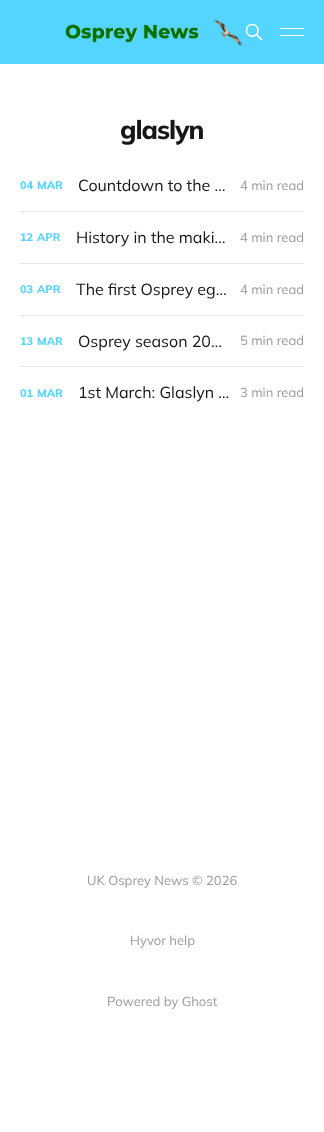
async function draw(canvas) {
  canvas.width = 324;
  canvas.height = 1132;
  const ctx = canvas.getContext('2d');
  ctx.miterLimit = 4;
  ctx.fontKerning = 'normal';
  function label(s, x, y, font, color) {
    ctx.font = font;
    ctx.fillStyle = color;
    ctx.fillText(s, x, y);
  }
  function rect(x, y, w, h, color) {
    ctx.fillStyle = color;
    ctx.fillRect(x, y, w, h);
  }
  async function image(src, x, y, w, h) {
    const img = new Image();
    img.src = src;
    await img.decode();
    ctx.drawImage(img, x, y, w, h);
  }
  let path;

  rect(0, 0, 324, 1132, '#fff');
  rect(0, 0, 324, 64, '#53d5fd');
  await image('assets/img1.png', 65, 19, 177, 27);
  path = new Path2D('M261.5 39.5L256.5 34.5M258 30.5C258 38 246.5 38 246.5 30.5C246.5 22.5 258 22.5 258 30.5Z');
  ctx.strokeStyle = '#fff';
  ctx.lineWidth = 1.7;
  ctx.lineCap = 'round';
  ctx.lineJoin = 'round';
  ctx.stroke(path);
  rect(280, 28, 24, 1, '#fff');
  rect(280, 35, 24, 1, '#fff');
  ctx.letterSpacing = '-1px';
  label('glaslyn', 120, 139, '200 26px Mulish', '#15171a');
  ctx.letterSpacing = '0px';
  label('04', 20, 189, '200 11px Mulish', '#53d5fd');
  label('MAR', 37, 189, '200 11px Mulish', '#53d5fd');
  label('Countdown to the …', 78, 191, '200 16px "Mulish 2"', '#15171a');
  label('4 min read', 240, 190, '200 13px "Mulish 2"', '#999');
  rect(20, 211, 284, 1, '#e6e6e6');
  label('12', 20, 241, '200 11px Mulish', '#53d5fd');
  label('APR', 37, 241, '200 11px Mulish', '#53d5fd');
  label('History in the maki…', 76, 243, '200 16px "Mulish 2"', '#15171a');
  label('4 min read', 240, 242, '200 13px "Mulish 2"', '#999');
  rect(20, 263, 284, 1, '#e6e6e6');
  label('03', 20, 293, '200 11px Mulish', '#53d5fd');
  label('APR', 37, 293, '200 11px Mulish', '#53d5fd');
  label('The first Osprey eg…', 76, 295, '200 16px "Mulish 2"', '#15171a');
  label('4 min read', 240, 294, '200 13px "Mulish 2"', '#999');
  rect(20, 315, 284, 1, '#e6e6e6');
  label('13', 20, 345, '200 11px Mulish', '#53d5fd');
  label('MAR', 37, 345, '200 11px Mulish', '#53d5fd');
  label('Osprey season 20…', 78, 347, '200 16px "Mulish 2"', '#15171a');
  label('5 min read', 240, 345, '200 13px "Mulish 2"', '#999');
  rect(20, 366, 284, 1, '#e6e6e6');
  label('01', 20, 397, '200 11px Mulish', '#53d5fd');
  label('MAR', 37, 397, '200 11px Mulish', '#53d5fd');
  label('1st March: Glaslyn …', 78, 398, '200 16px "Mulish 2"', '#15171a');
  label('3 min read', 240, 397, '200 13px "Mulish 2"', '#999');
  label('UK Osprey News © 2026', 87, 885, '200 13px "Mulish 2"', '#999');
  label('Hyvor help', 130, 945, '200 13px "Mulish 2"', '#999');
  label('Powered by Ghost', 107, 1006, '200 13px "Mulish 2"', '#999');
}

draw(document.querySelector('canvas'));
